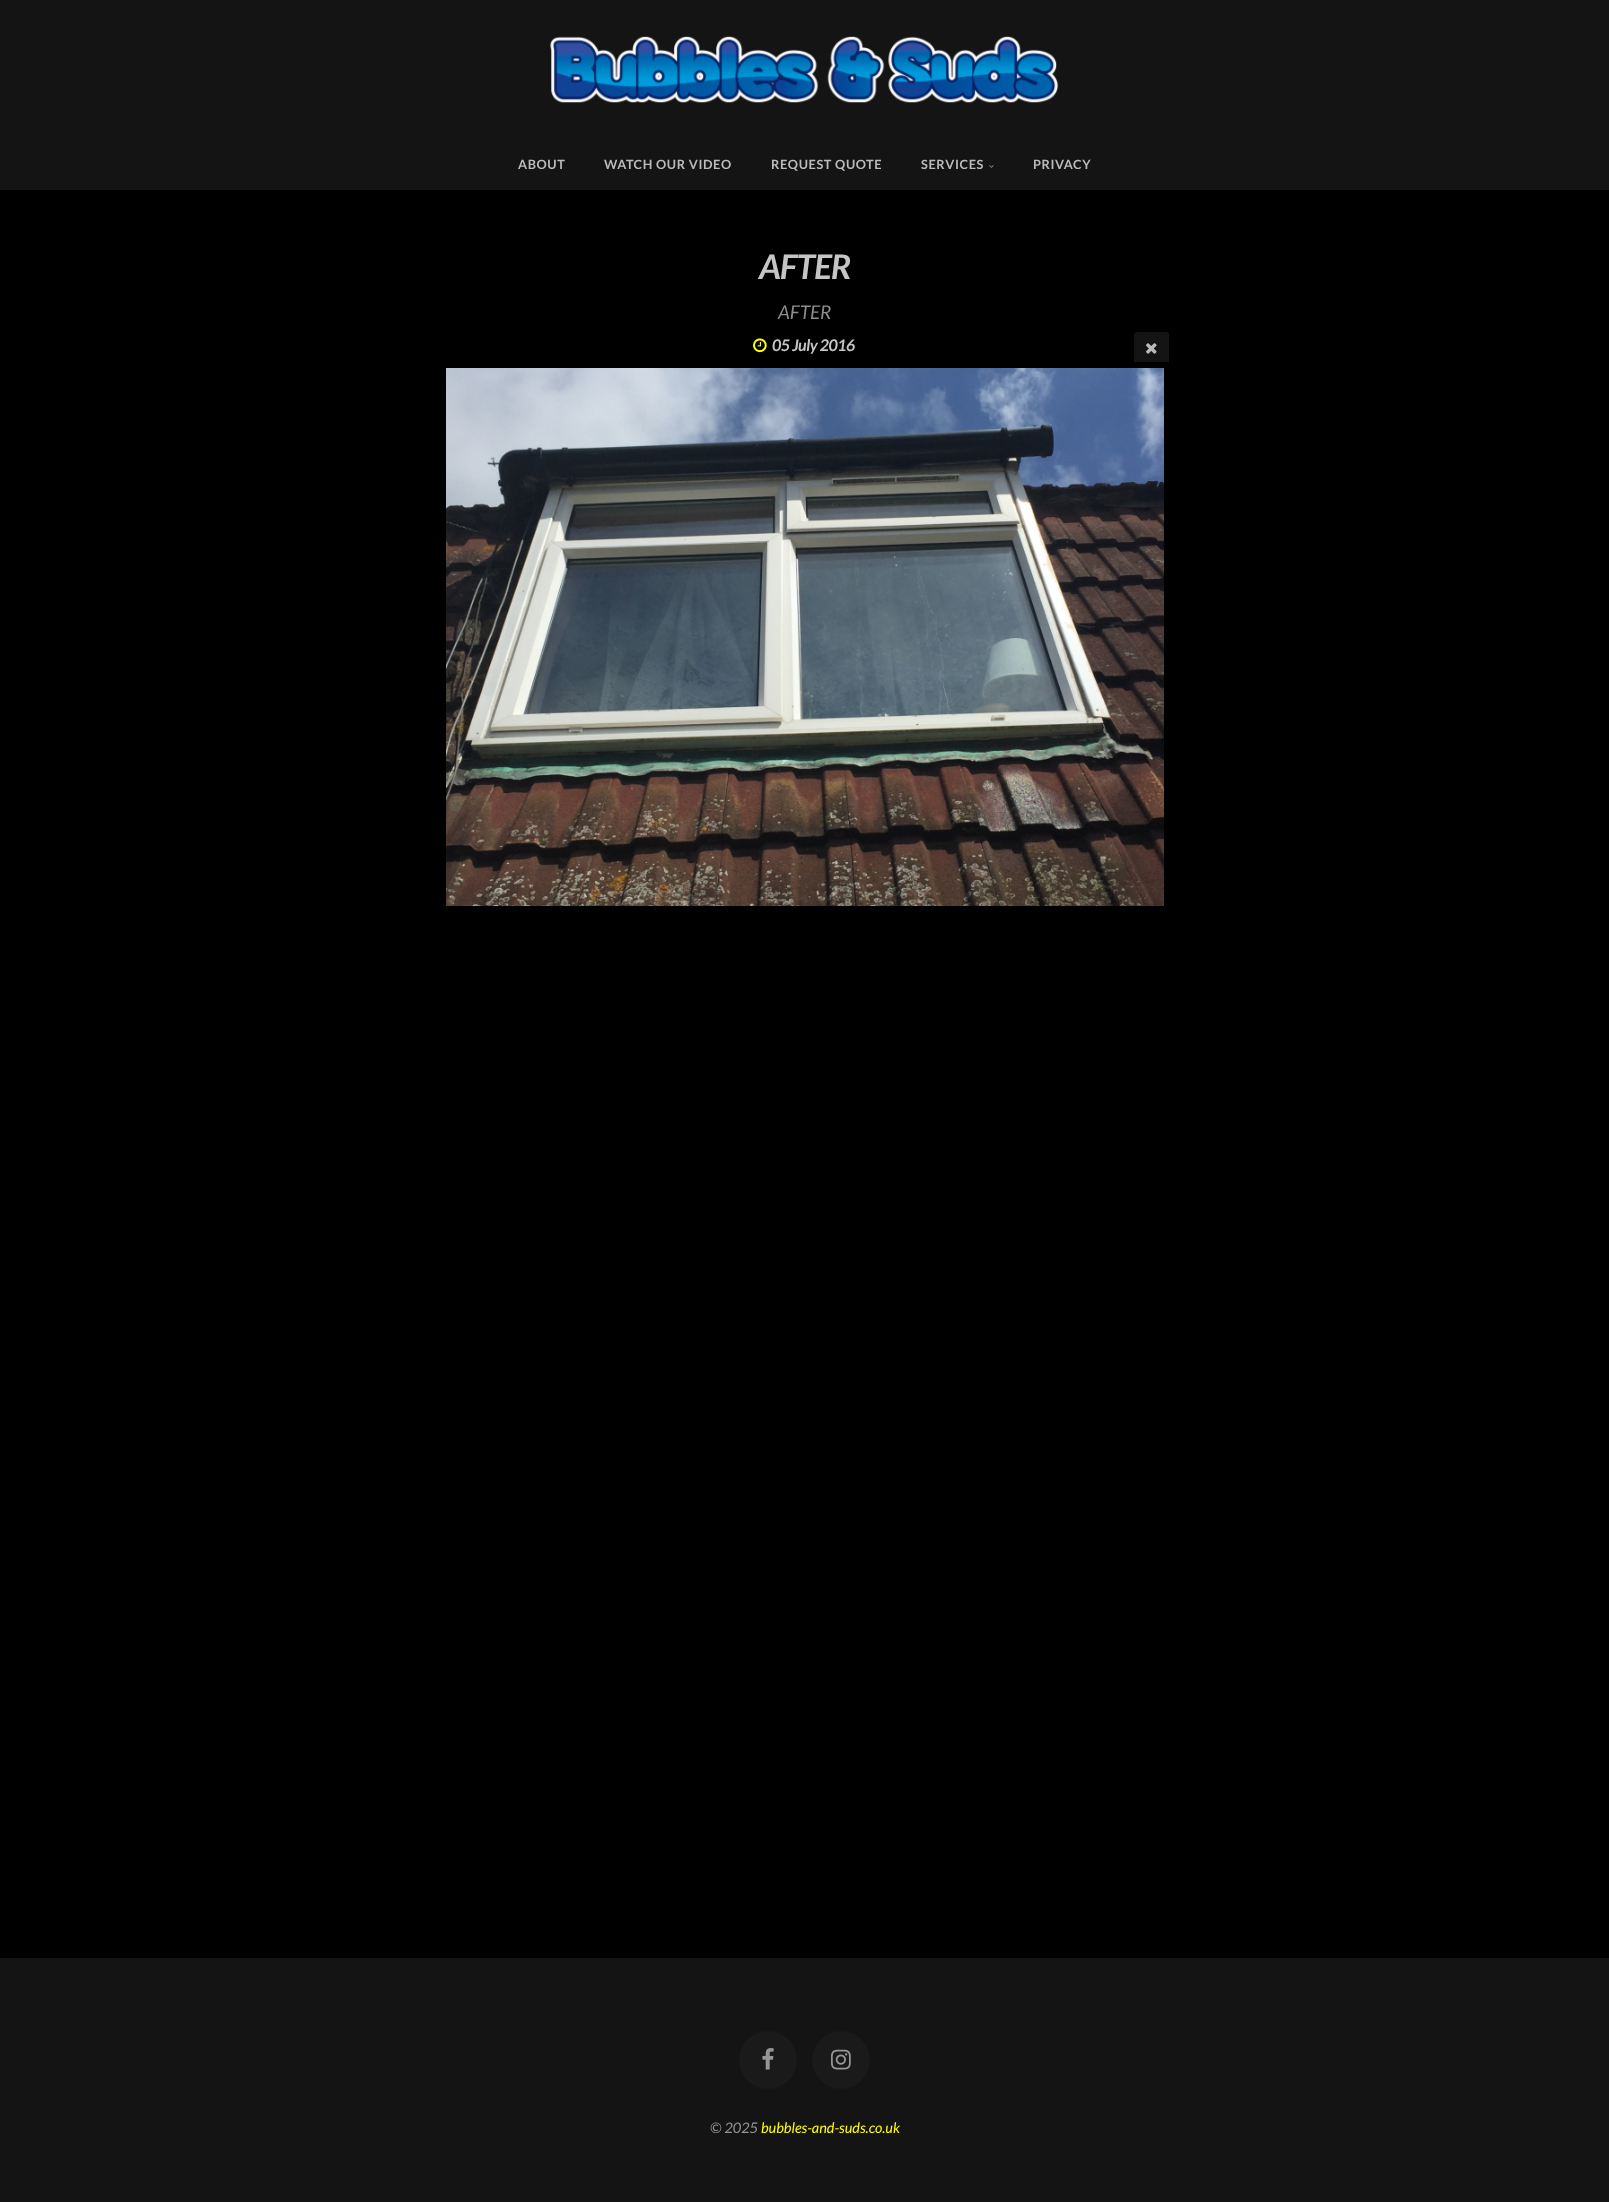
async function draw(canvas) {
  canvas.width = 1609;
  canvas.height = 2202;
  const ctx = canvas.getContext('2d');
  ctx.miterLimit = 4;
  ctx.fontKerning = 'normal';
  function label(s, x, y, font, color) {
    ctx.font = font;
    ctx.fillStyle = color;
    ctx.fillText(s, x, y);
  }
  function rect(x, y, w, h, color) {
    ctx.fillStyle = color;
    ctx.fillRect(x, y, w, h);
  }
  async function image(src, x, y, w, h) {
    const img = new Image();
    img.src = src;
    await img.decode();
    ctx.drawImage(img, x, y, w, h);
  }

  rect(0, 0, 1609, 2202, '#141414');
  rect(0, 190, 1609, 1768, '#000');
  await image('assets/img1.png', 550, 36, 509, 67);
  ctx.letterSpacing = '0.6px';
  label('ABOUT', 518, 169, 'bold 12.75px Lato', '#bbb');
  label('WATCH OUR VIDEO', 604, 169, 'bold 12.75px Lato', '#bbb');
  label('REQUEST QUOTE', 771, 169, 'bold 12.75px Lato', '#bbb');
  label('SERVICES', 921, 169, 'bold 12.75px Lato', '#bbb');
  await image('assets/img2.png', 989, 165, 5, 3);
  label('PRIVACY', 1033, 169, 'bold 12.75px Lato', '#bbb');
  ctx.letterSpacing = '-1px';
  label('AFTER', 759, 279, 'italic bold 34px Lato', '#c5c5c5');
  ctx.letterSpacing = '0px';
  label('AFTER', 778, 319, 'italic 19px Lato', '#8c8c8c');
  await image('assets/img3.png', 753, 338, 14, 15);
  ctx.letterSpacing = '-0.5px';
  label('05 July 2016', 772, 351, 'italic bold 16px Lato', '#c5c5c5');
  ctx.fillStyle = '#141414';
  ctx.beginPath();
  ctx.roundRect(1134, 332, 35, 30, [3, 3, 0, 0]);
  ctx.fill();
  await image('assets/img4.png', 1146, 343, 11, 11);
  await image('assets/img5.png', 446, 368, 718, 538);
  ctx.fillStyle = '#1a1a1a';
  ctx.beginPath();
  ctx.arc(768, 2060, 29, 0, 2 * Math.PI);
  ctx.fill();
  await image('assets/img6.png', 762, 2048, 12, 22);
  ctx.beginPath();
  ctx.arc(841, 2060, 29, 0, 2 * Math.PI);
  ctx.fill();
  await image('assets/img7.png', 831, 2049, 20, 21);
  ctx.letterSpacing = '0px';
  label('© 2025', 710, 2133, 'italic 14.5px Lato', '#969696');
  label('bubbles-and-suds.co.uk', 761, 2133, 'italic 14.5px Lato', '#ff0');
}

draw(document.querySelector('canvas'));
